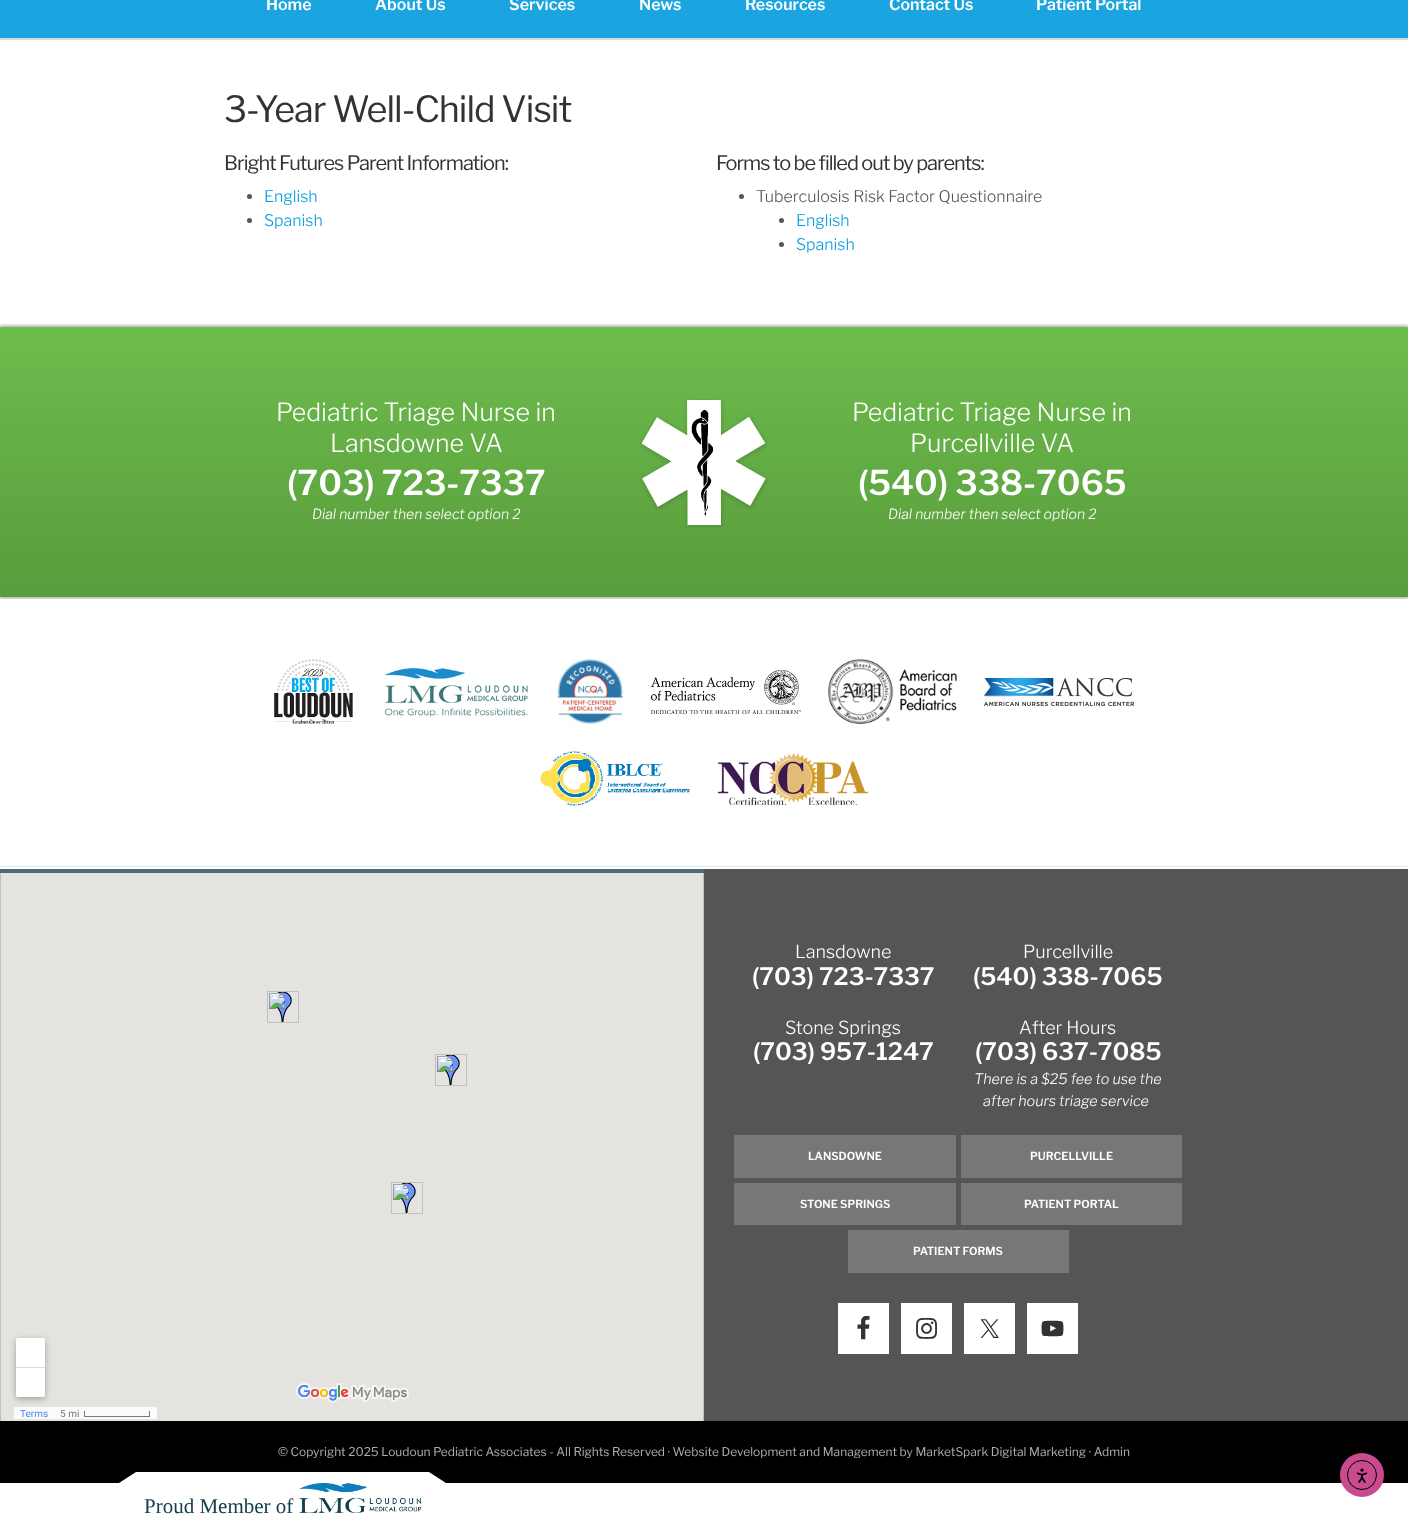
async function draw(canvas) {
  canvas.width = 1408;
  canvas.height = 1521;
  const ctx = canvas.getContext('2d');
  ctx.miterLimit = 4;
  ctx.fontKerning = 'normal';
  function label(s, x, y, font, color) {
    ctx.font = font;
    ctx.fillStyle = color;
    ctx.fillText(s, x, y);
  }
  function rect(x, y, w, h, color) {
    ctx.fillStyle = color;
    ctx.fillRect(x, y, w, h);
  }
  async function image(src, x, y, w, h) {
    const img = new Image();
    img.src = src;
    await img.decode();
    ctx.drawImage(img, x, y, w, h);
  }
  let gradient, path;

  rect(0, 0, 1408, 1521, '#fff');
  ctx.fillStyle = '#00000026';
  ctx.filter = 'blur(0.5px)';
  ctx.beginPath();
  ctx.rect(0, -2, 1408, 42);
  ctx.fill();
  ctx.filter = 'none';
  rect(0, 0, 1408, 38, '#1aa5e1');
  label('Home', 266, 10, '600 16px Libre Franklin', '#fff');
  label('About Us', 375, 10, '600 16px Libre Franklin', '#fff');
  label('Services', 509, 10, '600 16px Libre Franklin', '#fff');
  label('News', 639, 10, '600 16px Libre Franklin', '#fff');
  label('Resources', 745, 10, '600 16px Libre Franklin', '#fff');
  label('Contact Us', 889, 10, '600 16px Libre Franklin', '#fff');
  label('Patient Portal', 1036, 10, '600 16px Libre Franklin', '#fff');
  ctx.letterSpacing = '-1px';
  label('3-Year Well-Child Visit', 224, 122, '36px Libre Franklin', '#333');
  label('Bright Futures Parent Information:', 224, 170, '20px Libre Franklin', '#333');
  ctx.fillStyle = '#555';
  ctx.beginPath();
  ctx.arc(249.5, 196.5, 2.5, 0, 2 * Math.PI);
  ctx.fill();
  ctx.letterSpacing = '0px';
  label('English', 264, 202, '300 16px Libre Franklin', '#009bde');
  ctx.fillStyle = '#555';
  ctx.beginPath();
  ctx.arc(249.5, 220.5, 2.5, 0, 2 * Math.PI);
  ctx.fill();
  label('Spanish', 264, 226, '300 16px Libre Franklin', '#009bde');
  ctx.letterSpacing = '-1px';
  label('Forms to be filled out by parents:', 716, 170, '20px Libre Franklin', '#333');
  ctx.fillStyle = '#555';
  ctx.beginPath();
  ctx.arc(741.5, 196.5, 2.5, 0, 2 * Math.PI);
  ctx.fill();
  ctx.letterSpacing = '0px';
  label('Tuberculosis Risk Factor Questionnaire', 756, 202, '300 16px Libre Franklin', '#555');
  ctx.beginPath();
  ctx.arc(781.5, 220.5, 2.5, 0, 2 * Math.PI);
  ctx.fill();
  label('English', 796, 226, '300 16px Libre Franklin', '#009bde');
  ctx.fillStyle = '#555';
  ctx.beginPath();
  ctx.arc(781.5, 244.5, 2.5, 0, 2 * Math.PI);
  ctx.fill();
  label('Spanish', 796, 250, '300 16px Libre Franklin', '#009bde');
  ctx.fillStyle = '#00000040';
  ctx.filter = 'blur(1px)';
  ctx.beginPath();
  ctx.rect(0, 325, 1408, 274);
  ctx.fill();
  ctx.filter = 'none';
  gradient = ctx.createLinearGradient(704, 327, 704, 597);
  gradient.addColorStop(0, '#6dbd4d');
  gradient.addColorStop(1, '#599c3c');
  ctx.fillStyle = gradient;
  ctx.fillRect(0, 327, 1408, 270);
  await image('assets/img1.png', 640, 399, 128, 129);
  label('Pediatric Triage Nurse in', 276, 421, '300 25px Libre Franklin', '#fff');
  label('Lansdowne VA', 330, 452, '300 25px Libre Franklin', '#fff');
  label('(703) 723-7337', 287, 495, '600 34px Libre Franklin', '#fff');
  label('Dial number then select option 2', 312, 519, 'italic 300 14px Libre Franklin', '#fff');
  label('Pediatric Triage Nurse in', 852, 421, '300 25px Libre Franklin', '#fff');
  label('Purcellville VA', 910, 452, '300 25px Libre Franklin', '#fff');
  label('(540) 338-7065', 858, 495, '600 34px Libre Franklin', '#fff');
  label('Dial number then select option 2', 888, 519, 'italic 300 14px Libre Franklin', '#fff');
  rect(0, 599, 1408, 2, '#fff');
  await image('assets/img2.png', 274, 659, 79, 65);
  await image('assets/img3.png', 384, 667, 144, 50);
  await image('assets/img4.png', 558, 659, 65, 65);
  await image('assets/img5.png', 651, 670, 150, 44);
  await image('assets/img6.png', 828, 659, 129, 65);
  await image('assets/img7.png', 984, 678, 150, 28);
  await image('assets/img8.png', 540, 751, 150, 55);
  await image('assets/img9.png', 718, 753, 150, 52);
  rect(0, 1421, 1408, 62, '#000');
  ctx.fillStyle = '#00000040';
  ctx.filter = 'blur(1px)';
  ctx.beginPath();
  ctx.rect(0, 867, 1408, 554);
  ctx.fill();
  ctx.filter = 'none';
  rect(704, 869, 704, 552, '#555');
  rect(0, 867, 1408, 2, '#fff');
  await image('assets/img10.png', 0, 869, 704, 552);
  label('Lansdowne', 795, 958, '300 18px Libre Franklin', '#fff');
  label('(703) 723-7337', 752, 985, '600 24px Libre Franklin', '#fff');
  label('Purcellville', 1023, 958, '300 18px Libre Franklin', '#fff');
  label('(540) 338-7065', 973, 985, '600 24px Libre Franklin', '#fff');
  label('Stone Springs', 785, 1034, '300 18px Libre Franklin', '#fff');
  label('(703) 957-1247', 753, 1060, '600 24px Libre Franklin', '#fff');
  label('After Hours', 1019, 1034, '300 18px Libre Franklin', '#fff');
  label('(703) 637-7085', 975, 1060, '600 24px Libre Franklin', '#fff');
  label('There is a $25 fee to use the', 974, 1084, 'italic 300 14.4px Libre Franklin', '#fff');
  label('after hours triage service', 983, 1106, 'italic 300 14.4px Libre Franklin', '#fff');
  rect(734, 1135, 222, 43, '#777');
  label('LANSDOWNE', 808, 1160, '600 11px Libre Franklin', '#fff');
  rect(961, 1135, 221, 43, '#777');
  label('PURCELLVILLE', 1030, 1160, '600 11px Libre Franklin', '#fff');
  rect(734, 1183, 222, 42, '#777');
  label('STONE SPRINGS', 800, 1208, '600 11px Libre Franklin', '#fff');
  rect(961, 1183, 221, 42, '#777');
  label('PATIENT PORTAL', 1024, 1208, '600 11px Libre Franklin', '#fff');
  rect(848, 1230, 221, 43, '#777');
  label('PATIENT FORMS', 913, 1255, '600 11px Libre Franklin', '#fff');
  rect(838, 1303, 51, 51, '#fff');
  await image('assets/img11.png', 857, 1316, 13, 24);
  rect(901, 1303, 51, 51, '#fff');
  await image('assets/img12.png', 916, 1318, 21, 21);
  rect(964, 1303, 51, 51, '#fff');
  await image('assets/img13.png', 980, 1319, 19, 19);
  rect(1027, 1303, 51, 51, '#fff');
  await image('assets/img14.png', 1041, 1320, 23, 17);
  label('© Copyright 2025 Loudoun Pediatric Associates - All Rights Reserved · Website Development and Management by MarketSpark Digital Marketing · Admin', 278, 1456, '12px Libre Franklin', '#adadad');
  ctx.fillStyle = '#c94a8f';
  ctx.beginPath();
  ctx.arc(1362, 1475, 22, 0, 2 * Math.PI);
  ctx.fill();
  ctx.beginPath();
  ctx.arc(1362, 1475, 14.5, 0, 2 * Math.PI);
  ctx.strokeStyle = '#000';
  ctx.stroke();
  await image('assets/img15.png', 1356, 1468, 12, 15);
  ctx.fillStyle = '#fff';
  path = new Path2D('M429 1472H136L119 1483H446Z');
  ctx.fill(path);
  label('Proud Member of', 144, 1513, '21px Liberation Serif', '#12404b');
  await image('assets/img16.png', 299, 1483, 122, 30);
}

draw(document.querySelector('canvas'));
